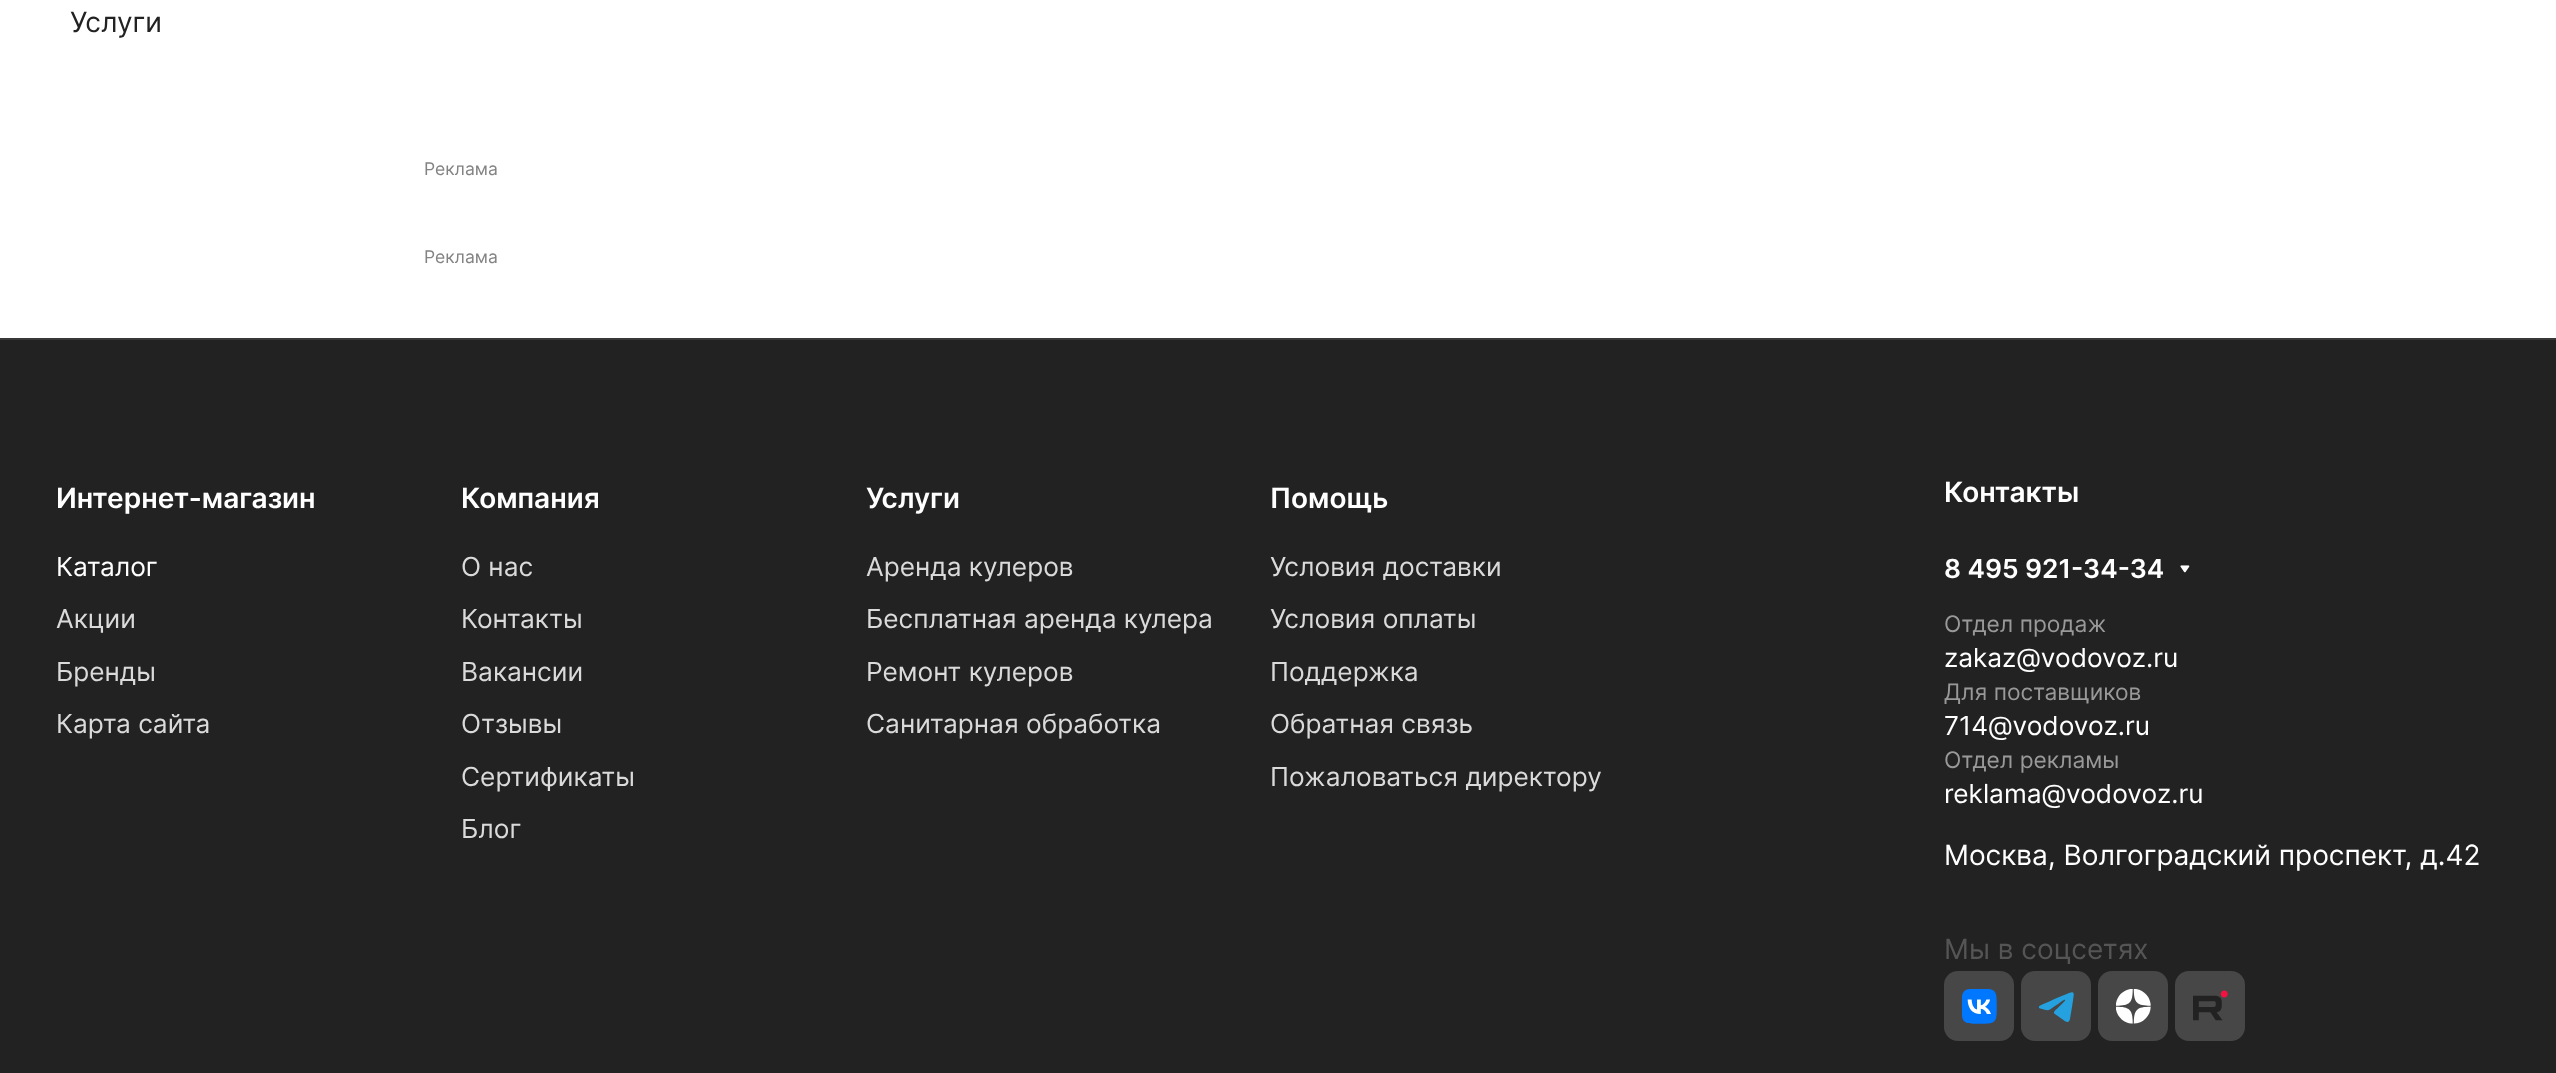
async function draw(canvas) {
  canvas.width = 2556;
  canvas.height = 1073;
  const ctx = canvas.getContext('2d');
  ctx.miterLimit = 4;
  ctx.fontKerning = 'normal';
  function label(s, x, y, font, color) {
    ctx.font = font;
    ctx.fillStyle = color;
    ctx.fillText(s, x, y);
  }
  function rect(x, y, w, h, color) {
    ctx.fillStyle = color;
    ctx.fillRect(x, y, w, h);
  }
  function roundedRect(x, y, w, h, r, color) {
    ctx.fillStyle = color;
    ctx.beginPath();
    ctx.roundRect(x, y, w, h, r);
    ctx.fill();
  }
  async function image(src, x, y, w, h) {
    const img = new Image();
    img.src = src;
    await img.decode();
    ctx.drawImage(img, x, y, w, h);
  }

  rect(0, 0, 2556, 1073, '#fff');
  label('Услуги', 70, 32, '28px Inter', '#222');
  label('Реклама', 424, 175, '17.5px Inter', '#838383');
  label('Реклама', 424, 263, '17.5px Inter', '#838383');
  rect(0, 340, 2556, 733, '#222');
  rect(0, 338, 2556, 2, '#383838');
  label('Интернет-магазин', 56, 508, '600 28px Inter', '#fff');
  label('Каталог', 56, 576, '26.25px Inter', '#fff');
  label('Акции', 56, 628, '26.25px Inter', '#dadada');
  label('Бренды', 56, 681, '26.25px Inter', '#dadada');
  label('Карта сайта', 56, 733, '26.25px Inter', '#dadada');
  label('Компания', 461, 508, '600 28px Inter', '#fff');
  label('О нас', 461, 576, '26.25px Inter', '#dadada');
  label('Контакты', 461, 628, '26.25px Inter', '#dadada');
  label('Вакансии', 461, 681, '26.25px Inter', '#dadada');
  label('Отзывы', 461, 733, '26.25px Inter', '#dadada');
  label('Сертификаты', 461, 786, '26.25px Inter', '#dadada');
  label('Блог', 461, 838, '26.25px Inter', '#dadada');
  label('Услуги', 866, 508, '600 28px Inter', '#fff');
  label('Аренда кулеров', 866, 576, '26.25px Inter', '#dadada');
  label('Бесплатная аренда кулера', 866, 628, '26.25px Inter', '#dadada');
  label('Ремонт кулеров', 866, 681, '26.25px Inter', '#dadada');
  label('Санитарная обработка', 866, 733, '26.25px Inter', '#dadada');
  label('Помощь', 1270, 508, '600 28px Inter', '#fff');
  label('Условия доставки', 1270, 576, '26.25px Inter', '#dadada');
  label('Условия оплаты', 1270, 628, '26.25px Inter', '#dadada');
  label('Поддержка', 1270, 681, '26.25px Inter', '#dadada');
  label('Обратная связь', 1270, 733, '26.25px Inter', '#dadada');
  label('Пожаловаться директору', 1270, 786, '26.25px Inter', '#dadada');
  label('Контакты', 1944, 502, '600 28px Inter', '#fff');
  label('8 495 921-34-34', 1944, 578, '600 26.25px Inter', '#fff');
  await image('assets/img1.png', 2180, 565, 10, 8);
  label('Отдел продаж', 1944, 632, '22.75px Inter', '#999');
  label('zakaz@vodovoz.ru', 1944, 667, '26.25px Inter', '#fff');
  label('Для поставщиков', 1944, 700, '22.75px Inter', '#999');
  label('714@vodovoz.ru', 1944, 735, '26.25px Inter', '#fff');
  label('Отдел рекламы', 1944, 768, '22.75px Inter', '#999');
  label('reklama@vodovoz.ru', 1944, 803, '26.25px Inter', '#fff');
  label('Москва, Волгоградский проспект, д.42', 1944, 865, '28px Inter', '#fff');
  label('Мы в соцсетях', 1944, 959, '28px Inter', '#555');
  roundedRect(1944, 971, 70, 70, 14, '#474747');
  await image('assets/img2.png', 1962, 989, 35, 35);
  roundedRect(2021, 971, 70, 70, 14, '#474747');
  await image('assets/img3.png', 2039, 992, 35, 30);
  roundedRect(2098, 971, 70, 70, 14, '#474747');
  await image('assets/img4.png', 2116, 989, 35, 35);
  roundedRect(2175, 971, 70, 70, 14, '#474747');
  await image('assets/img5.png', 2193, 990, 35, 31);
}

draw(document.querySelector('canvas'));
